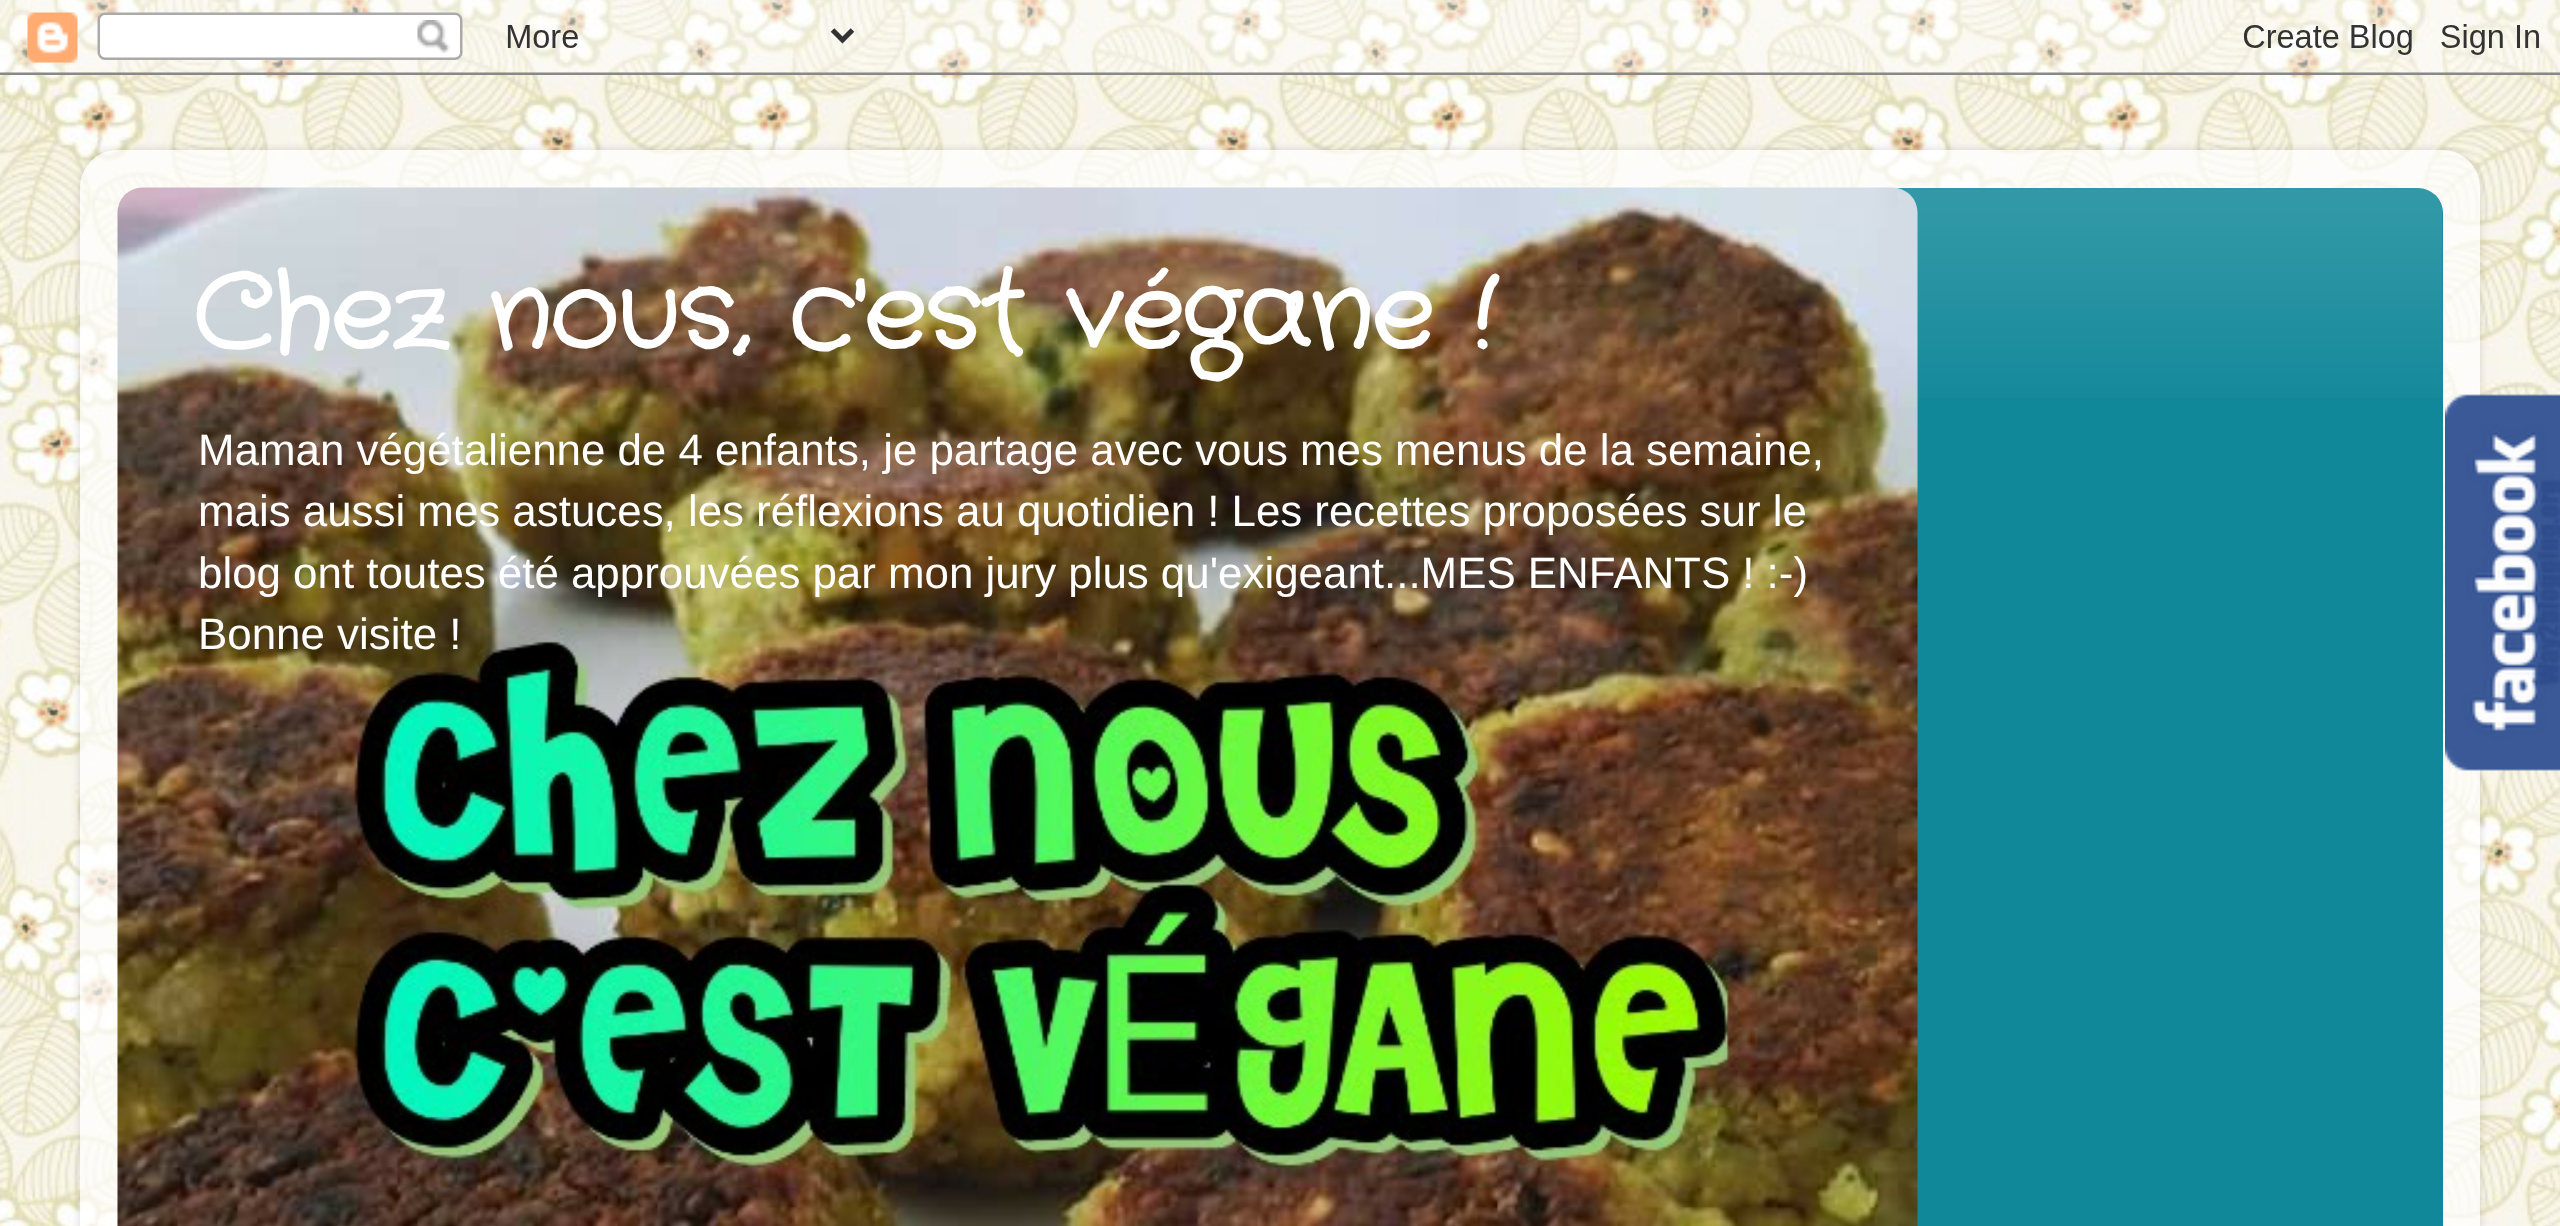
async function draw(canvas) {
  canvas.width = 2560;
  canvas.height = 1226;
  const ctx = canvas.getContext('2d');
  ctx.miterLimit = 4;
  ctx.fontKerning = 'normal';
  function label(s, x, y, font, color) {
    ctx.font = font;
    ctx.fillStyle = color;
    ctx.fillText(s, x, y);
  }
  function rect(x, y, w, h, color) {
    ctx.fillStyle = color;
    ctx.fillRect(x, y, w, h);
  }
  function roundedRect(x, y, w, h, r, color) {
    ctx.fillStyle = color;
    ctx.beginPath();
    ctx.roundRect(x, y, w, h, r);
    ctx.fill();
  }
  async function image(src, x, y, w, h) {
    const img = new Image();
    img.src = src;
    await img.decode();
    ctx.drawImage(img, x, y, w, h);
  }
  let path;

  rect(0, 0, 2560, 1226, '#fff');
  await image('assets/img1.png', 0, 0, 2560, 1226);
  await image('assets/img2.png', 0, 0, 2560, 75);
  ctx.save();
  path = new Path2D('M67 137H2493V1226H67ZM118 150H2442C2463 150 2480 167 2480 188V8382C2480 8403 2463 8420 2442 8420H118C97 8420 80 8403 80 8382V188C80 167 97 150 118 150Z');
  ctx.clip(path, 'evenodd');
  ctx.fillStyle = '#00000026';
  ctx.filter = 'blur(4px)';
  ctx.beginPath();
  ctx.roundRect(80, 150, 2400, 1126, 38);
  ctx.fill();
  ctx.filter = 'none';
  ctx.restore();
  await image('assets/img3.png', 80, 150, 2400, 1076);
  roundedRect(118, 188, 2325, 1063, 25, '#189');
  await image('assets/img4.png', 118, 188, 2325, 210);
  await image('assets/img5.png', 117, 187, 1801, 1039);
  label('Chez nous, c\'est végane !', 193, 345, 'bold 105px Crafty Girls', '#fff');
  ctx.wordSpacing = '-0.1px';
  label('Maman végétalienne de 4 enfants, je partage avec vous mes menus de la semaine,', 198, 465, '43.9px Liberation Sans', '#fff');
  label('mais aussi mes astuces, les réflexions au quotidien ! Les recettes proposées sur le', 198, 526, '43.9px Liberation Sans', '#fff');
  label('blog ont toutes été approuvées par mon jury plus qu\'exigeant...MES ENFANTS ! :-)', 198, 588, '43.9px Liberation Sans', '#fff');
  ctx.wordSpacing = '0px';
  label('Bonne visite !', 198, 649, '43.9px Liberation Sans', '#fff');
  await image('assets/img6.png', 2445, 394, 115, 377);
}

draw(document.querySelector('canvas'));
